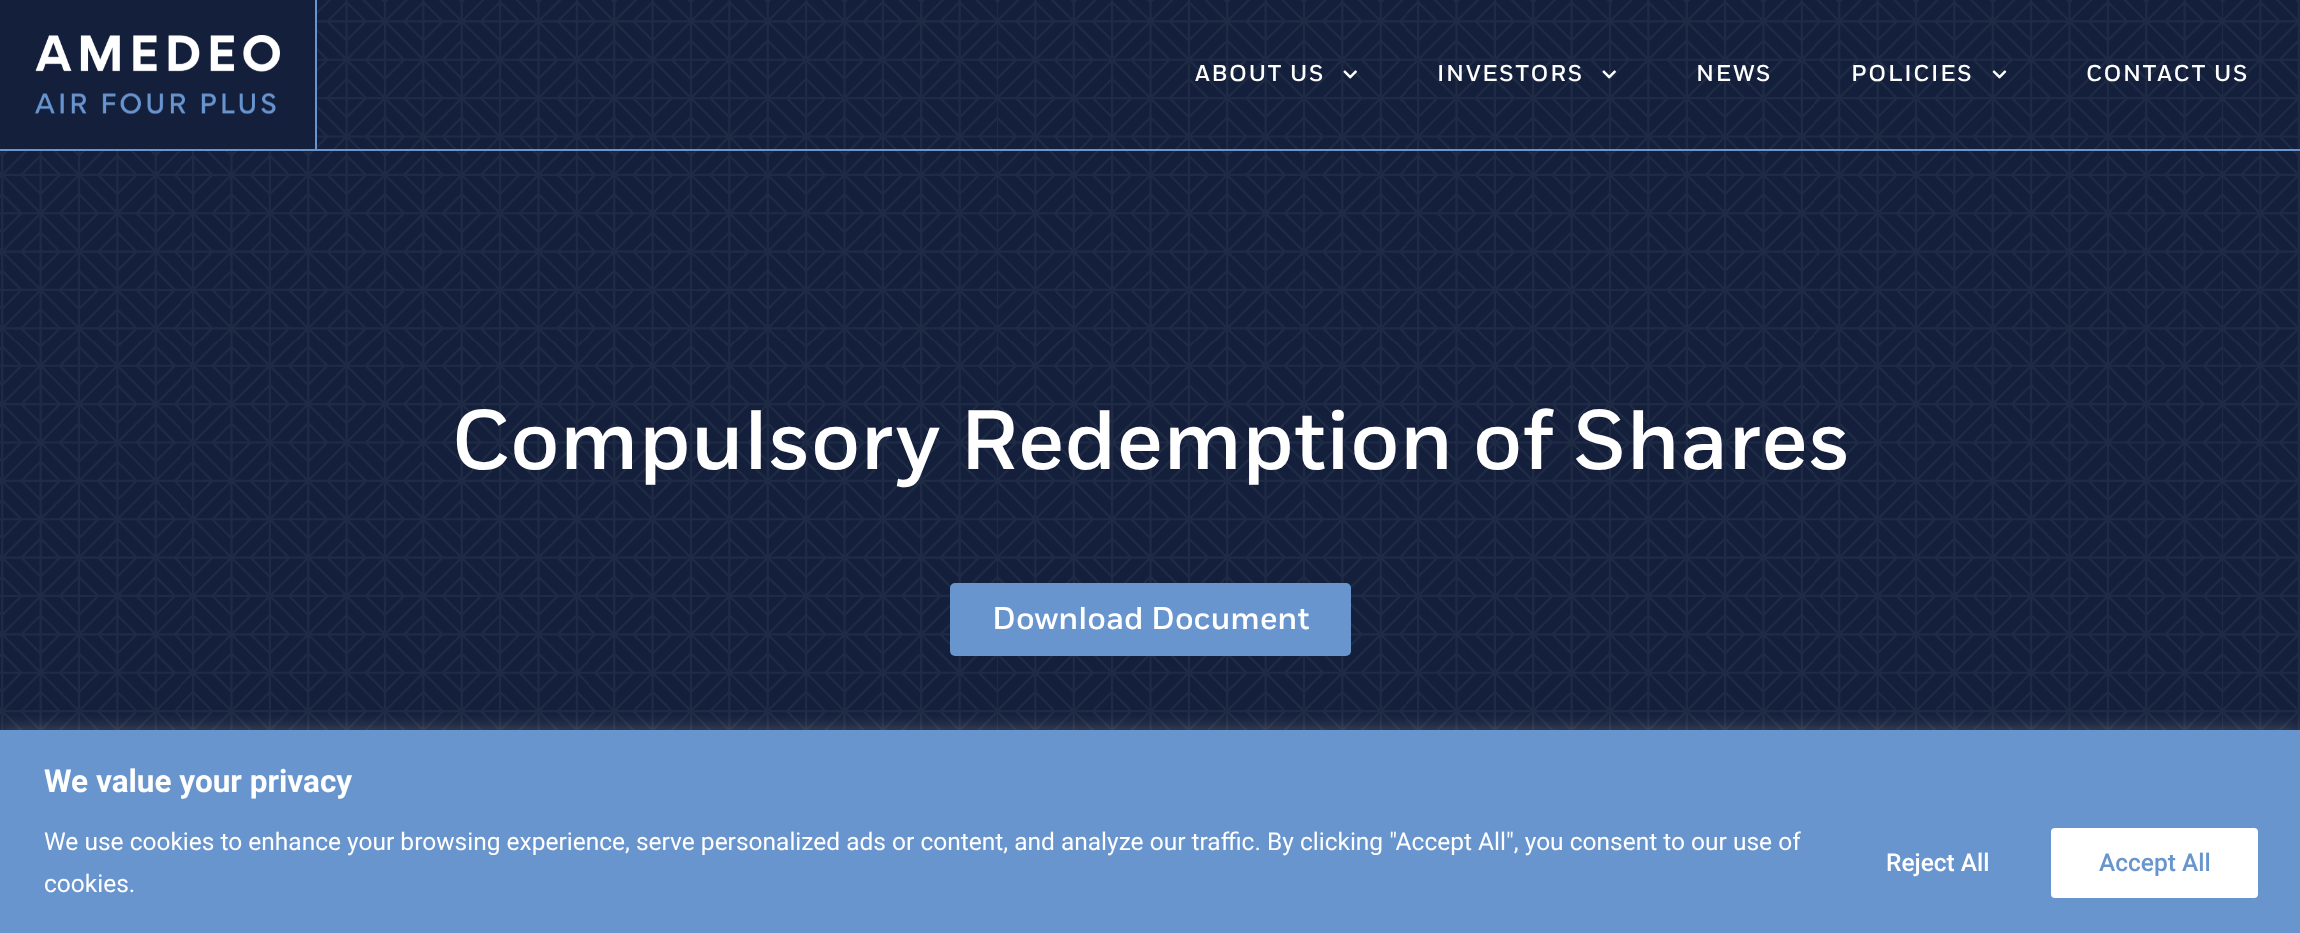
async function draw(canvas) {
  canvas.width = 2300;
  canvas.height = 933;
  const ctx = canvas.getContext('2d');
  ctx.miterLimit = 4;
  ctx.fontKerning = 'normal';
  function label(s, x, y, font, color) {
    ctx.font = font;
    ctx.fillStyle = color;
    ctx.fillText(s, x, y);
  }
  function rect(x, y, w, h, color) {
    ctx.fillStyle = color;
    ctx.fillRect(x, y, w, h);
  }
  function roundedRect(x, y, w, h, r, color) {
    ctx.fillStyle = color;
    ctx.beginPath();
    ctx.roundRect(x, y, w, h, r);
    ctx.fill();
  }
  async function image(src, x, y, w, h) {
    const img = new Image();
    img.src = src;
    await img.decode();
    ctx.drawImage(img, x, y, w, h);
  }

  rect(0, 0, 2300, 933, '#14203b');
  await image('assets/img5.png', 0, 0, 2300, 730);
  rect(0, 149, 2300, 2, '#6895ce');
  rect(0, 0, 315, 149, '#14203b');
  rect(315, 0, 2, 149, '#6895ce');
  await image('assets/img1.png', 35, 35, 245, 79);
  ctx.letterSpacing = '1.75px';
  label('ABOUT US', 1195, 81, '500 22.75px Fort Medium', '#fff');
  await image('assets/img2.png', 1343, 70, 14, 9);
  label('INVESTORS', 1437, 81, '500 22.75px Fort Medium', '#fff');
  await image('assets/img3.png', 1602, 70, 14, 9);
  label('NEWS', 1696, 81, '500 22.75px Fort Medium', '#fff');
  label('POLICIES', 1851, 81, '500 22.75px Fort Medium', '#fff');
  await image('assets/img4.png', 1992, 70, 15, 9);
  label('CONTACT US', 2086, 81, '500 22.75px Fort Medium', '#fff');
  ctx.letterSpacing = '0px';
  label('Compulsory Redemption of Shares', 451, 469, '500 84px Fort Medium', '#fff');
  roundedRect(950, 583, 401, 73, 5, '#6895ce');
  label('Download Document', 992, 629, '500 31.5px Fort Medium', '#fff');
  ctx.fillStyle = '#acabab4d';
  ctx.filter = 'blur(9px)';
  ctx.beginPath();
  ctx.rect(0, 728, 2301, 205);
  ctx.fill();
  ctx.filter = 'none';
  rect(0, 730, 2300, 203, '#6895ce');
  label('We value your privacy', 44, 792, 'bold 31.5px Roboto', '#fff');
  label('We use cookies to enhance your browsing experience, serve personalized ads or content, and analyze our traffic. By clicking "Accept All", you consent to our use of', 44, 850, '24.5px Roboto', '#fff');
  label('cookies.', 44, 892, '24.5px Roboto', '#fff');
  label('Reject All', 1886, 871, '500 24.5px Roboto', '#fff');
  roundedRect(2051, 828, 207, 70, 4, '#fff');
  label('Accept All', 2099, 871, '500 24.5px Roboto', '#6895ce');
}

draw(document.querySelector('canvas'));
